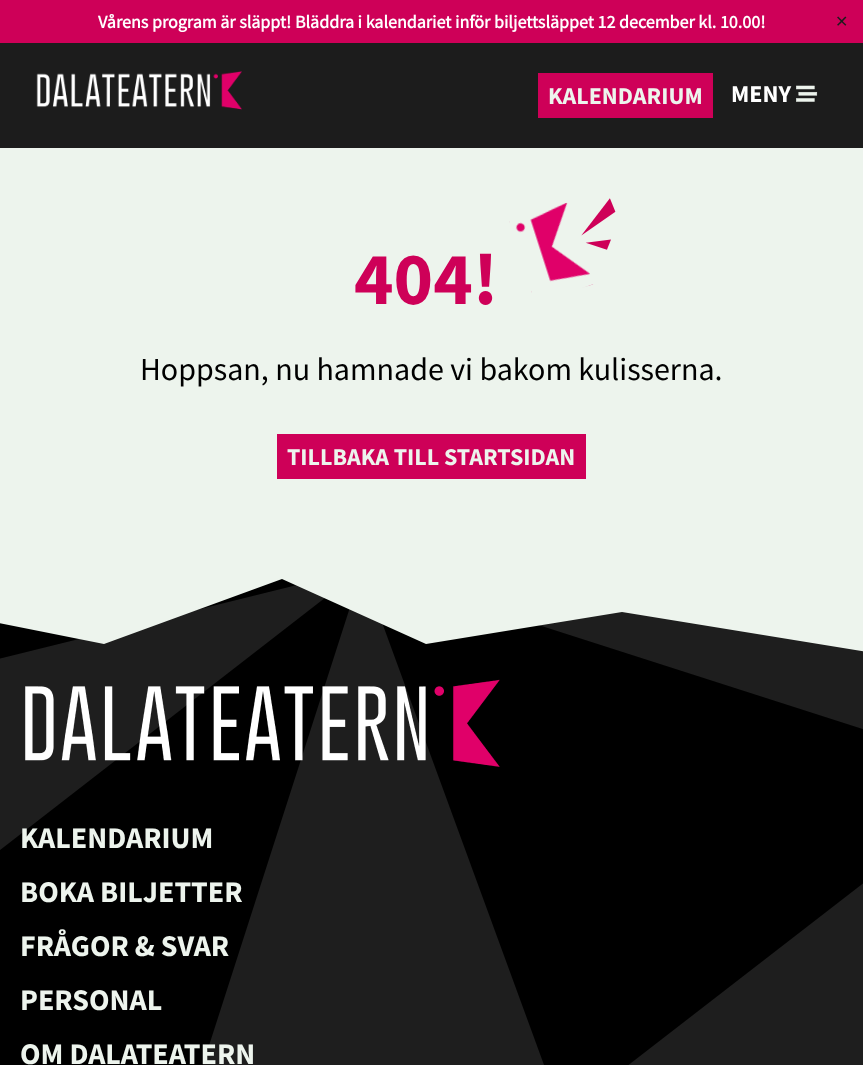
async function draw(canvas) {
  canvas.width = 863;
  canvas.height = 1065;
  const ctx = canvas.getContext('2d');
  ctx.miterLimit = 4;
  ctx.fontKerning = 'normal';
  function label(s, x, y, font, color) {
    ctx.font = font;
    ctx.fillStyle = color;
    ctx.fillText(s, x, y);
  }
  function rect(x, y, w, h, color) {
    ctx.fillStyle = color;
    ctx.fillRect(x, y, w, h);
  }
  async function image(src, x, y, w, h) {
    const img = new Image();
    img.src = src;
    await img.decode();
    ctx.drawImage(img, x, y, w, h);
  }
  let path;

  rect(0, 0, 863, 1065, '#edf4ed');
  rect(0, 0, 863, 43, '#ce0058');
  label('Vårens program är släppt! Bläddra i kalendariet inför biljettsläppet 12 december kl. 10.00!', 98, 28, 'bold 18px "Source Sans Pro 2"', '#fff');
  label('✕', 835, 27, '16px DejaVu Sans', '#1c1c1c');
  rect(0, 43, 863, 105, '#1c1c1c');
  await image('assets/img1.png', 36, 71, 206, 39);
  rect(538, 73, 175, 45, '#ce0058');
  label('KALENDARIUM', 548, 104, 'bold 24px Source Sans Pro', '#edf4ed');
  label('MENY', 731, 102, 'bold 24px Source Sans Pro', '#fff');
  await image('assets/img2.png', 796, 85, 22, 17);
  label('404!', 354, 304, 'bold 75px Source Sans Pro', '#ce0058');
  await image('assets/img3.png', 509, 198, 107, 95);
  label('Hoppsan, nu hamnade vi bakom kulisserna.', 140, 380, '32px Source Sans Pro', '#000');
  rect(277, 434, 309, 45, '#ce0058');
  label('TILLBAKA TILL STARTSIDAN', 287, 465, 'bold 24px Source Sans Pro', '#edf4ed');
  rect(0, 579, 863, 486, '#000');
  await image('assets/img4.png', 0, 585, 863, 480);
  ctx.save();
  ctx.beginPath();
  ctx.rect(0, 559, 863, 100);
  ctx.clip();
  ctx.fillStyle = '#edf4ed';
  path = new Path2D('M221 263L-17 229L-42 231V615L104 644L282 579L426 644L622 612L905 658V265L735 231L559 296L414 231Z');
  ctx.fill(path);
  ctx.restore();
  await image('assets/img5.png', 25, 679, 475, 88);
  label('KALENDARIUM', 20, 848, 'bold 30px Source Sans Pro', '#edf4ed');
  label('BOKA BILJETTER', 20, 902, 'bold 30px Source Sans Pro', '#edf4ed');
  label('FRÅGOR & SVAR', 20, 956, 'bold 30px Source Sans Pro', '#edf4ed');
  label('PERSONAL', 20, 1010, 'bold 30px Source Sans Pro', '#edf4ed');
  label('OM DALATEATERN', 20, 1064, 'bold 30px Source Sans Pro', '#edf4ed');
}

draw(document.querySelector('canvas'));
